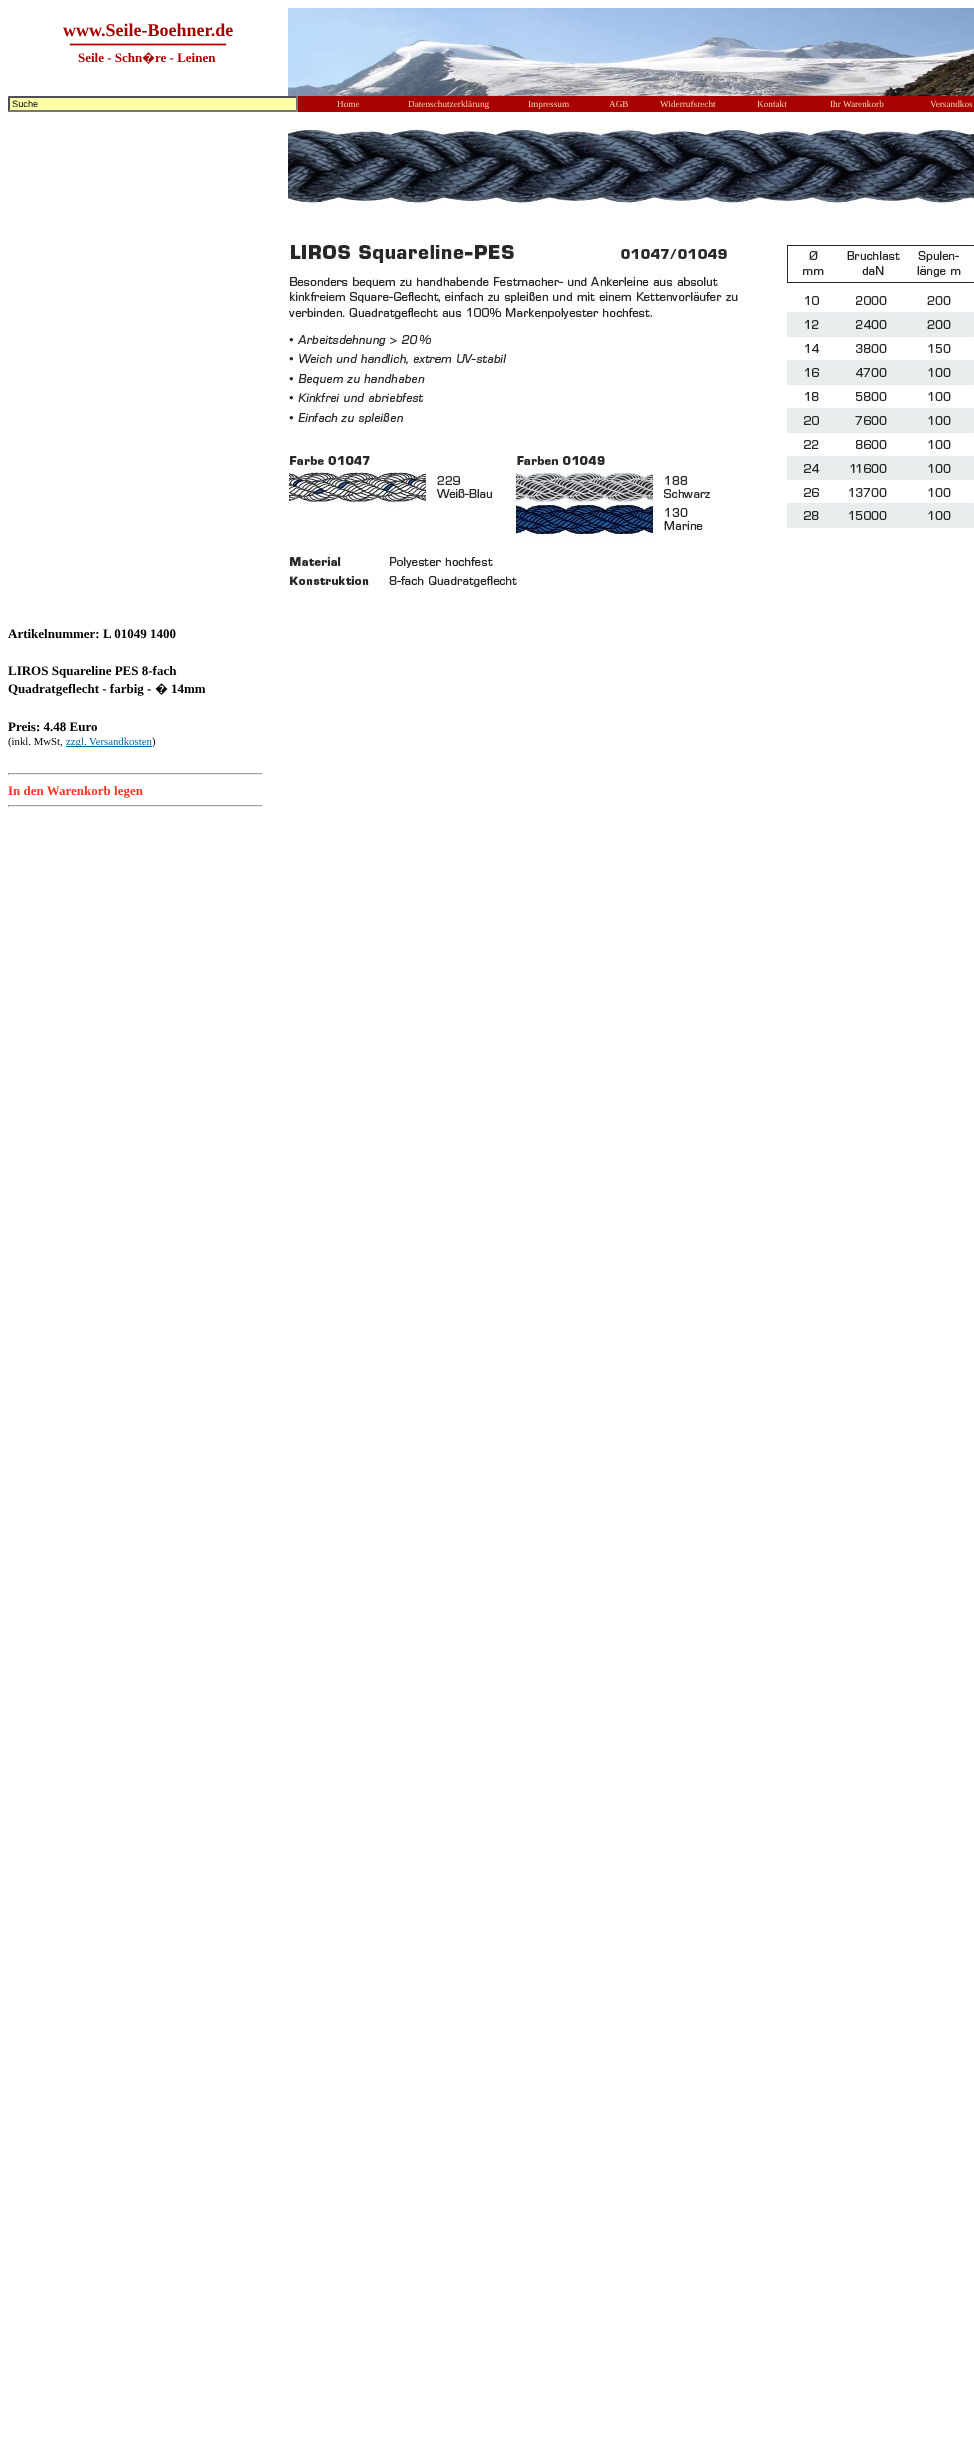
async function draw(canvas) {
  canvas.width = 974;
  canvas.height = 2454;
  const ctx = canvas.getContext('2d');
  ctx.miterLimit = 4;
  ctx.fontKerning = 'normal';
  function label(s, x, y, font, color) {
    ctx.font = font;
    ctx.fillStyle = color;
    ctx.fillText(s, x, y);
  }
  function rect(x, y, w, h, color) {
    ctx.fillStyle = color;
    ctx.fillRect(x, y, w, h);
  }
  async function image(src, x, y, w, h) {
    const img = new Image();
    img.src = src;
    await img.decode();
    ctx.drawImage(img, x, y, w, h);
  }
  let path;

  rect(0, 0, 974, 2454, '#fff');
  label('www.Seile-Boehner.de', 63, 36, 'bold 18px Liberation Serif', '#a90101');
  label('_____________', 70, 42, 'bold 24px Liberation Serif', '#a90101');
  label('Seile - Schn', 78, 62, 'bold 13px Liberation Serif', '#a90101');
  label('�', 142, 62, 'bold 13px Noto Sans', '#a90101');
  label('re - Leinen', 155, 62, 'bold 13px Liberation Serif', '#a90101');
  await image('assets/img1.png', 288, 8, 686, 88);
  rect(8, 96, 290, 16, '#fdffa8');
  ctx.fillStyle = '#4f4f4f';
  path = new Path2D('M8 96H298L296 98H10Z');
  ctx.fill(path);
  ctx.fillStyle = '#767676';
  path = new Path2D('M298 96V112L296 110V98Z');
  ctx.fill(path);
  path = new Path2D('M298 112H8L10 110H296Z');
  ctx.fill(path);
  ctx.fillStyle = '#4f4f4f';
  path = new Path2D('M8 112V96L10 98V110Z');
  ctx.fill(path);
  label('Suche', 12, 107, '9.25px Liberation Sans', '#000');
  rect(298, 96, 676, 16, '#a90101');
  label('Home', 337, 107, '9.25px Liberation Serif', '#f1dbab');
  label('Datenschutzerklärung', 408, 107, '9.25px Liberation Serif', '#f1dbab');
  label('Impressum', 528, 107, '9.25px Liberation Serif', '#f1dbab');
  label('AGB', 609, 107, '9.25px Liberation Serif', '#f1dbab');
  label('Widerrufsrecht', 660, 107, '9.25px Liberation Serif', '#f1dbab');
  label('Kontakt', 757, 107, '9.25px Liberation Serif', '#f1dbab');
  label('Ihr Warenkorb', 830, 107, '9.25px Liberation Serif', '#f1dbab');
  label('Versandkos', 930, 107, '9.25px Liberation Serif', '#f1dbab');
  await image('assets/img2.png', 288, 128, 686, 462);
  label('Artikelnummer: L 01049 1400', 8, 638, 'bold 13px Liberation Serif', '#000');
  label('LIROS Squareline PES 8-fach', 8, 675, 'bold 13px Liberation Serif', '#000');
  label('Quadratgeflecht - farbig -', 8, 693, 'bold 13px Liberation Serif', '#000');
  label('�', 155, 693, '900 13px Noto Sans', '#000');
  label('14mm', 171, 693, 'bold 13px Liberation Serif', '#000');
  label('Preis: 4.48 Euro', 8, 731, 'bold 13px Liberation Serif', '#000');
  label('(inkl. MwSt,', 8, 745, '10.75px Liberation Serif', '#000');
  rect(66, 746, 86, 1, '#069');
  label('zzgl. Versandkosten', 66, 745, '10.75px Liberation Serif', '#069');
  label(')', 152, 745, '10.75px Liberation Serif', '#000');
  rect(8, 773, 255, 1, '#9f9f9f');
  rect(262, 773, 1, 2, '#eee');
  rect(8, 774, 255, 1, '#eee');
  rect(8, 773, 1, 2, '#9f9f9f');
  label('In den Warenkorb legen', 8, 795, 'bold 13px Liberation Serif', '#f32');
  rect(8, 805, 255, 1, '#9f9f9f');
  rect(262, 805, 1, 2, '#eee');
  rect(8, 806, 255, 1, '#eee');
  rect(8, 805, 1, 2, '#9f9f9f');
}

draw(document.querySelector('canvas'));
